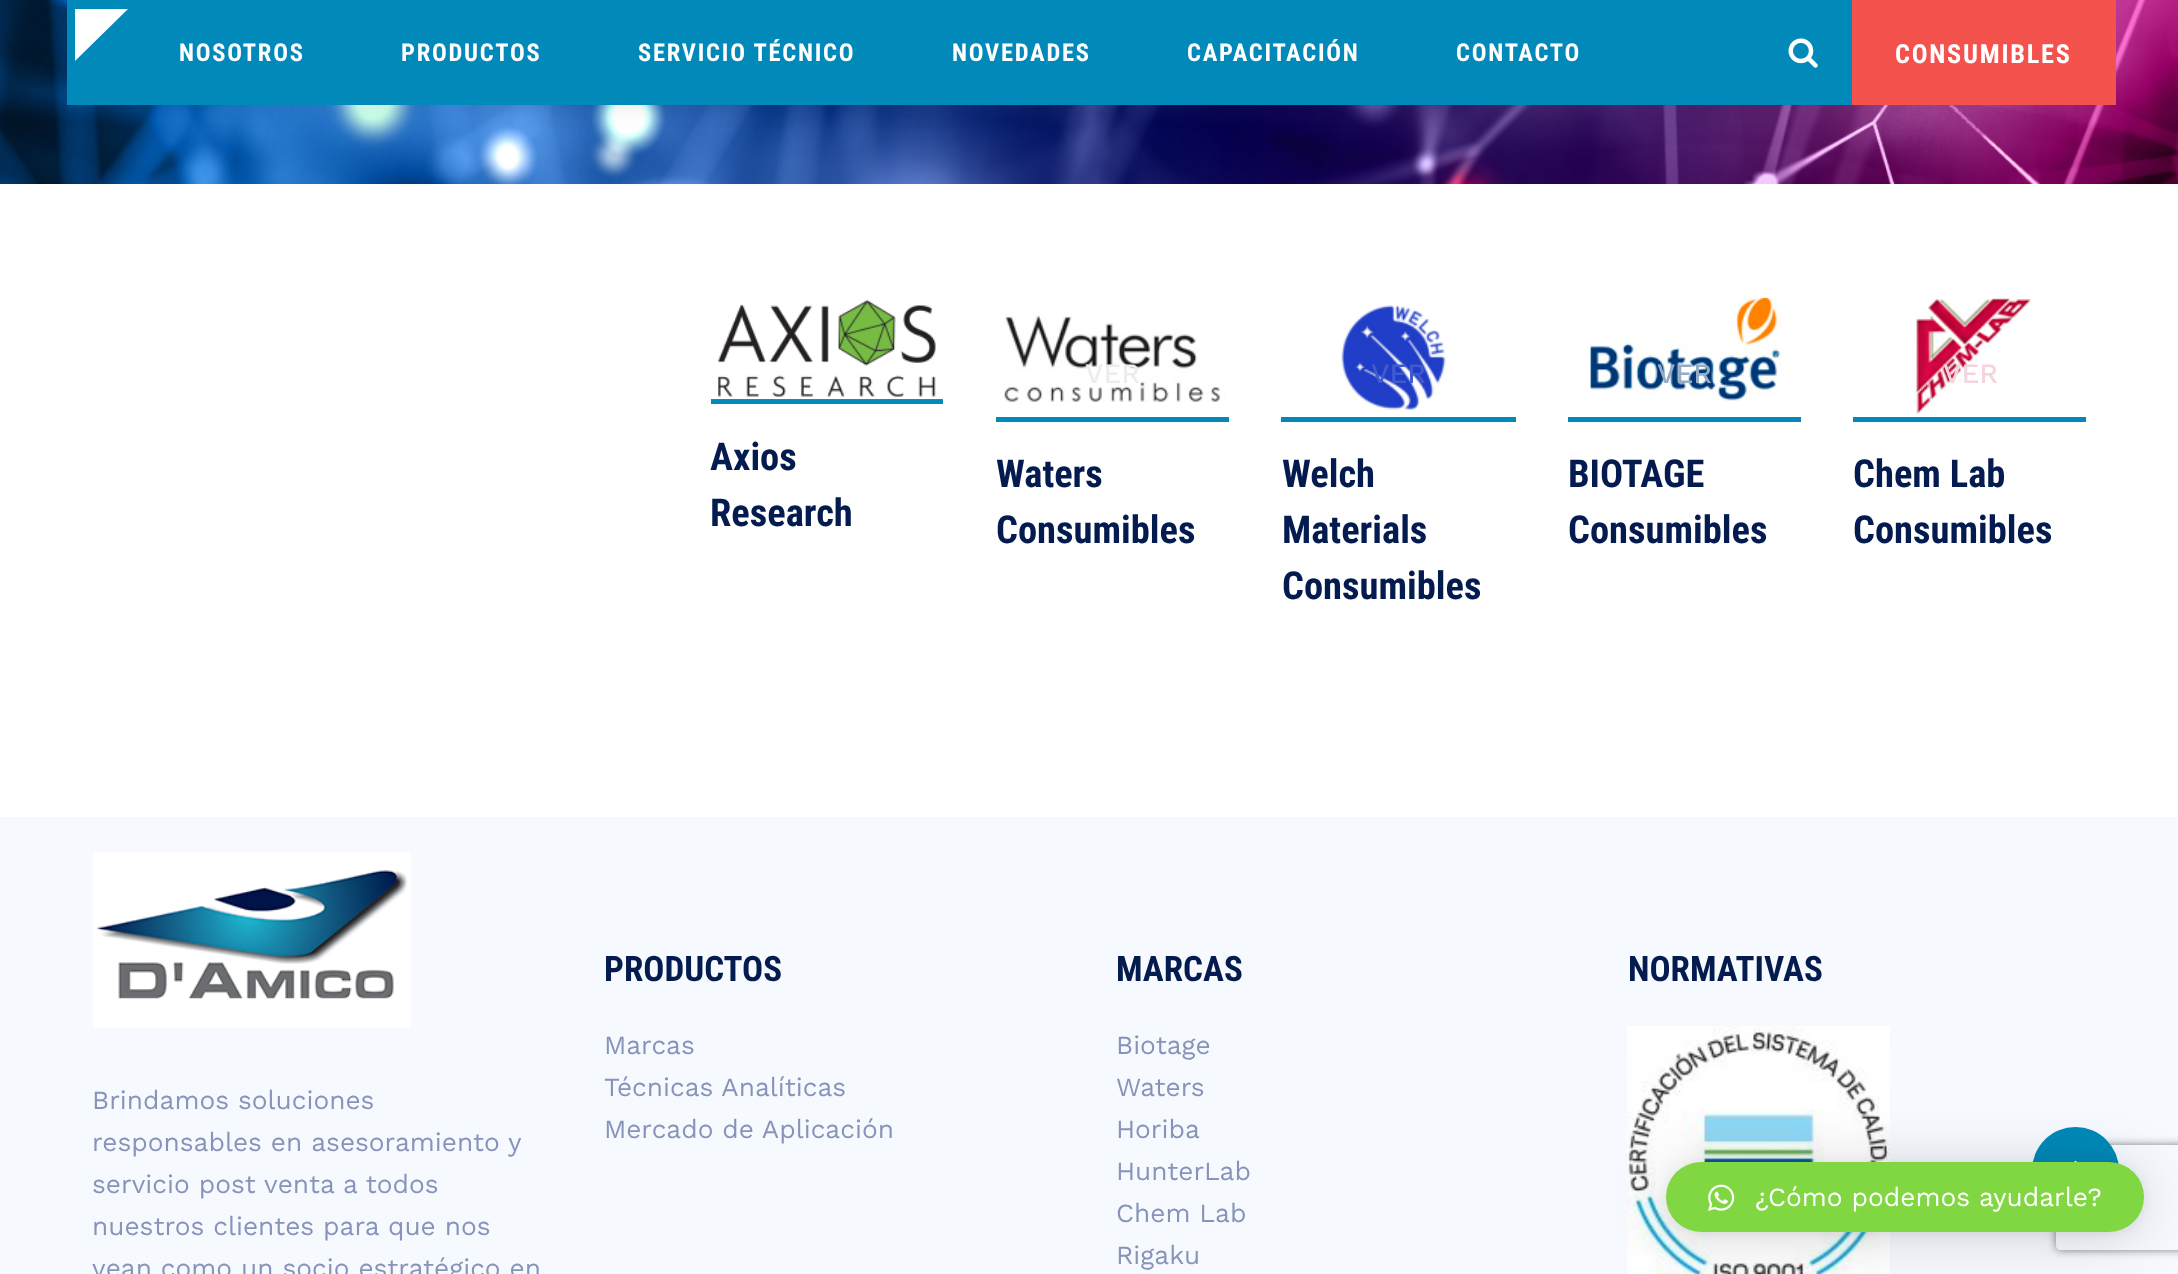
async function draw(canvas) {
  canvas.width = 2178;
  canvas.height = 1274;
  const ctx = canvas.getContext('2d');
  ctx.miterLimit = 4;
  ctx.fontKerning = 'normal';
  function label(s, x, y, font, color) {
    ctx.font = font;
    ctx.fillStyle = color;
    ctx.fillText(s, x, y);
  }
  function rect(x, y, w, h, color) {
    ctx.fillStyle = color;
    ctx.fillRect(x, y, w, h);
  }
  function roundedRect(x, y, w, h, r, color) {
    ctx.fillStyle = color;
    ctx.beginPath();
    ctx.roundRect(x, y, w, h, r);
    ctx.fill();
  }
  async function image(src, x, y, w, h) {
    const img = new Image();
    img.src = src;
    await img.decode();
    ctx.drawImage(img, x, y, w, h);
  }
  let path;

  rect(0, 0, 2178, 1274, '#fff');
  await image('assets/img1.png', 0, 0, 2178, 184);
  ctx.fillStyle = '#0000000f';
  ctx.filter = 'blur(9px)';
  ctx.beginPath();
  ctx.rect(67, 7, 2047, 105);
  ctx.fill();
  ctx.filter = 'none';
  rect(67, 0, 1785, 105, '#0189b9');
  ctx.fillStyle = '#fff';
  path = new Path2D('M75 9H128L75 61Z');
  ctx.fill(path);
  ctx.letterSpacing = '1.75px';
  label('NOSOTROS', 179, 61, 'bold 24.5px Roboto Condensed', '#fff');
  label('PRODUCTOS', 401, 61, 'bold 24.5px Roboto Condensed', '#fff');
  label('SERVICIO TÉCNICO', 638, 61, 'bold 24.5px Roboto Condensed', '#fff');
  label('NOVEDADES', 952, 61, 'bold 24.5px Roboto Condensed', '#fff');
  label('CAPACITACIÓN', 1187, 61, 'bold 24.5px Roboto Condensed', '#fff');
  label('CONTACTO', 1456, 61, 'bold 24.5px Roboto Condensed', '#fff');
  await image('assets/img2.png', 1788, 38, 30, 30);
  rect(1852, 0, 264, 105, '#f4524d');
  label('CONSUMIBLES', 1895, 63, 'bold 26.25px Roboto Condensed', '#fff');
  rect(711, 399, 232, 5, '#0189b9');
  await image('assets/img3.png', 711, 300, 232, 100);
  ctx.letterSpacing = '0px';
  label('Axios', 710, 470, 'bold 38.5px Roboto Condensed', '#031b4e');
  label('Research', 710, 526, 'bold 38.5px Roboto Condensed', '#031b4e');
  rect(996, 417, 233, 5, '#0189b9');
  await image('assets/img4.png', 1004, 315, 221, 87);
  label('VER', 1085, 383, '500 28px Work Sans', '#ededed');
  label('Waters', 996, 487, 'bold 38.5px Roboto Condensed', '#031b4e');
  label('Consumibles', 996, 543, 'bold 38.5px Roboto Condensed', '#031b4e');
  rect(1281, 417, 235, 5, '#0189b9');
  await image('assets/img5.png', 1341, 305, 105, 105);
  label('VER', 1371, 383, '500 28px Work Sans', '#405acf');
  label('Welch', 1282, 487, 'bold 38.5px Roboto Condensed', '#031b4e');
  label('Materials', 1282, 543, 'bold 38.5px Roboto Condensed', '#031b4e');
  label('Consumibles', 1282, 599, 'bold 38.5px Roboto Condensed', '#031b4e');
  rect(1568, 417, 233, 5, '#0189b9');
  await image('assets/img6.png', 1587, 297, 194, 104);
  label('VER', 1657, 383, '500 28px Work Sans', '#93adc7');
  label('BIOTAGE', 1568, 487, 'bold 38.5px Roboto Condensed', '#031b4e');
  label('Consumibles', 1568, 543, 'bold 38.5px Roboto Condensed', '#031b4e');
  rect(1853, 417, 233, 5, '#0189b9');
  await image('assets/img7.png', 1915, 298, 116, 116);
  label('VER', 1943, 383, '500 28px Work Sans', '#f3d5dc');
  label('Chem Lab', 1853, 487, 'bold 38.5px Roboto Condensed', '#031b4e');
  label('Consumibles', 1853, 543, 'bold 38.5px Roboto Condensed', '#031b4e');
  rect(0, 817, 2178, 457, '#f6faff');
  label('PRODUCTOS', 604, 981, 'bold 35px Roboto Condensed', '#031b4e');
  label('Marcas', 604, 1054, '26.25px Work Sans', '#8893b9');
  label('Técnicas Analíticas', 604, 1096, '26.25px Work Sans', '#8893b9');
  label('Mercado de Aplicación', 604, 1138, '26.25px Work Sans', '#8893b9');
  label('MARCAS', 1116, 981, 'bold 35px Roboto Condensed', '#031b4e');
  label('Biotage', 1116, 1054, '26.25px Work Sans', '#8893b9');
  label('Waters', 1116, 1096, '26.25px Work Sans', '#8893b9');
  label('Horiba', 1116, 1138, '26.25px Work Sans', '#8893b9');
  label('HunterLab', 1116, 1180, '26.25px Work Sans', '#8893b9');
  label('Chem Lab', 1116, 1222, '26.25px Work Sans', '#8893b9');
  label('Rigaku', 1116, 1264, '26.25px Work Sans', '#8893b9');
  label('NORMATIVAS', 1628, 981, 'bold 35px Roboto Condensed', '#031b4e');
  await image('assets/img8.png', 1627, 1026, 263, 248);
  await image('assets/img9.png', 93, 852, 318, 176);
  label('Brindamos soluciones', 92, 1109, '26.25px Work Sans', '#8893b9');
  label('responsables en asesoramiento y', 92, 1151, '26.25px Work Sans', '#8893b9');
  label('servicio post venta a todos', 92, 1193, '26.25px Work Sans', '#8893b9');
  label('nuestros clientes para que nos', 92, 1235, '26.25px Work Sans', '#8893b9');
  label('vean como un socio estratégico en', 92, 1277, '26.25px Work Sans', '#8893b9');
  ctx.save();
  path = new Path2D('M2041 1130H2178V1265H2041ZM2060 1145H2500C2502 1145 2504 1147 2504 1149V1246C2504 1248 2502 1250 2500 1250H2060C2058 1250 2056 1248 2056 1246V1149C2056 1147 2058 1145 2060 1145Z');
  ctx.clip(path, 'evenodd');
  ctx.fillStyle = '#808080';
  ctx.filter = 'blur(4.5px)';
  ctx.beginPath();
  ctx.roundRect(2056, 1145, 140, 105, 4);
  ctx.fill();
  ctx.filter = 'none';
  ctx.restore();
  roundedRect(2032, 1127, 87, 88, 43.5, '#0189b9');
  await image('assets/img10.png', 2074, 1160, 3, 2);
  ctx.fillStyle = '#00000029';
  ctx.filter = 'blur(28px)';
  ctx.beginPath();
  ctx.roundRect(1666, 1166, 478, 70, 35);
  ctx.fill();
  ctx.filter = 'none';
  ctx.fillStyle = '#0000000f';
  ctx.filter = 'blur(5px)';
  ctx.beginPath();
  ctx.roundRect(1666, 1164, 478, 70, 35);
  ctx.fill();
  ctx.filter = 'none';
  roundedRect(1666, 1162, 478, 70, 35, '#81d742');
  await image('assets/img11.png', 1708, 1184, 27, 27);
  label('¿Cómo podemos ayudarle?', 1755, 1206, '26.25px Work Sans', '#fff');
}

draw(document.querySelector('canvas'));
